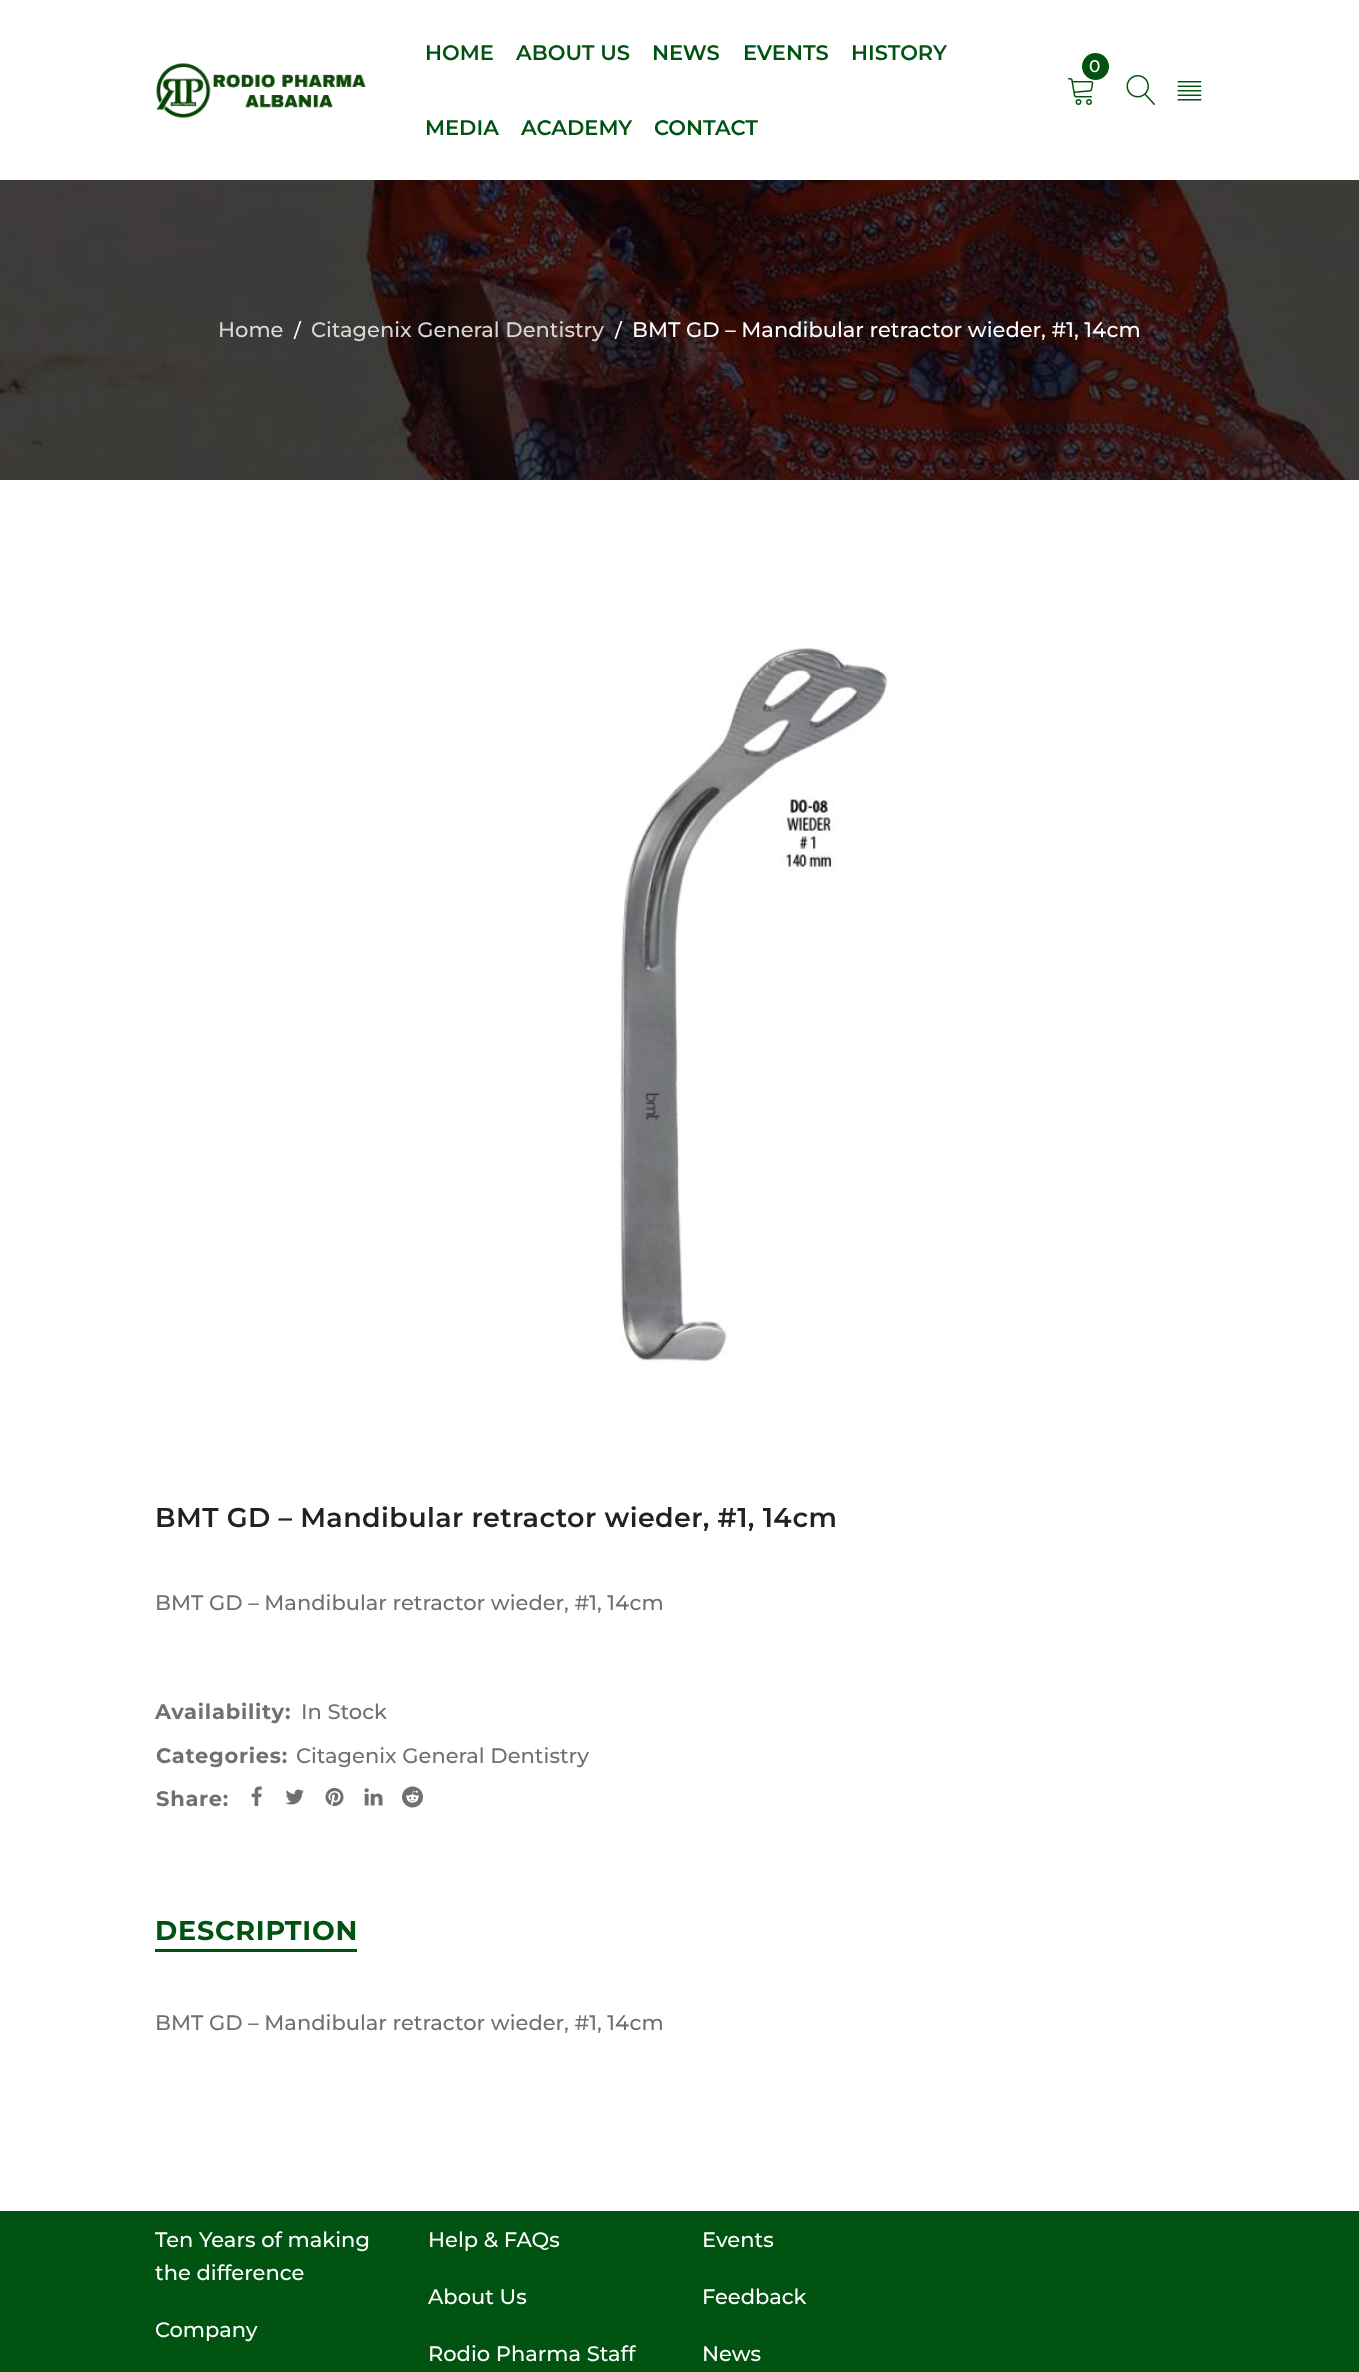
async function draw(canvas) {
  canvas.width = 1359;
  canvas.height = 2372;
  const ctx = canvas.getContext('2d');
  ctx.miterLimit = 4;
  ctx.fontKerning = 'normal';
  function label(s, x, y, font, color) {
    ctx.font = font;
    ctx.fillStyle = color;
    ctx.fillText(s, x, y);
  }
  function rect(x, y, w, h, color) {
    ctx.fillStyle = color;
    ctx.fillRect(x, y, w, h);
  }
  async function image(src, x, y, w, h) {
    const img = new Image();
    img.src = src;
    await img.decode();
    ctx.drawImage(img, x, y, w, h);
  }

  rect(0, 0, 1359, 2372, '#fff');
  await image('assets/img1.png', 156, 63, 210, 55);
  label('HOME', 425, 60, '600 21px Montserrat', '#005311');
  label('ABOUT US', 516, 60, '600 21px Montserrat', '#005311');
  label('NEWS', 652, 60, '600 21px Montserrat', '#005311');
  label('EVENTS', 743, 60, '600 21px Montserrat', '#005311');
  label('HISTORY', 851, 60, '600 21px Montserrat', '#005311');
  label('MEDIA', 425, 135, '600 21px Montserrat', '#005311');
  label('ACADEMY', 521, 135, '600 21px Montserrat', '#005311');
  label('CONTACT', 654, 135, '600 21px Montserrat', '#005311');
  await image('assets/img2.png', 1068, 78, 26, 27);
  ctx.beginPath();
  ctx.arc(1095.5, 66.5, 13.5, 0, 2 * Math.PI);
  ctx.fill();
  label('0', 1089, 72, '500 17px Montserrat', '#fff');
  await image('assets/img3.png', 1126, 75, 29, 30);
  await image('assets/img4.png', 1177, 81, 25, 20);
  await image('assets/img5.png', 0, 180, 1359, 300);
  label('Home', 218, 337, '500 21px Montserrat', '#d8d8d7');
  label('/', 294, 337, '500 19px Montserrat', '#fff');
  label('Citagenix General Dentistry', 311, 337, '500 21px Montserrat', '#d8d8d7');
  label('/', 615, 337, '500 19px Montserrat', '#fff');
  label('BMT GD – Mandibular retractor wieder, #1, 14cm', 632, 337, '500 21px Montserrat', '#fff');
  await image('assets/img6.png', 620, 646, 269, 719);
  ctx.letterSpacing = '0.4px';
  label('BMT GD – Mandibular retractor wieder, #1, 14cm', 155, 1527, '600 27px Montserrat', '#222');
  ctx.letterSpacing = '0px';
  label('BMT GD – Mandibular retractor wieder, #1, 14cm', 155, 1610, '500 21px Montserrat', '#707070');
  ctx.letterSpacing = '0.75px';
  label('Availability:', 155, 1719, 'bold 21px Montserrat', '#707070');
  ctx.letterSpacing = '0px';
  label('In Stock', 301, 1719, '500 21px Montserrat', '#707070');
  ctx.letterSpacing = '0.75px';
  label('Categories:', 156, 1763, 'bold 21px Montserrat', '#707070');
  ctx.letterSpacing = '0px';
  label('Citagenix General Dentistry', 296, 1763, '500 21px Montserrat', '#707070');
  ctx.letterSpacing = '0.75px';
  label('Share:', 156, 1806, 'bold 21px Montserrat', '#707070');
  await image('assets/img7.png', 251, 1786, 11, 20);
  await image('assets/img8.png', 285, 1789, 19, 16);
  await image('assets/img9.png', 325, 1788, 19, 18);
  await image('assets/img10.png', 364, 1788, 19, 18);
  await image('assets/img11.png', 402, 1786, 21, 22);
  label('DESCRIPTION', 155, 1940, 'bold 27px Montserrat', '#005311');
  rect(155, 1949, 202, 3, '#005311');
  ctx.letterSpacing = '0px';
  label('BMT GD – Mandibular retractor wieder, #1, 14cm', 155, 2030, '500 21px Montserrat', '#707070');
  rect(0, 2211, 1359, 161, '#005311');
  label('Ten Years of making', 155, 2247, '500 21px Montserrat', '#fff');
  label('the difference', 155, 2280, '500 21px Montserrat', '#fff');
  label('Company', 155, 2337, '500 21px Montserrat', '#fff');
  label('Help & FAQs', 428, 2247, '500 21px Montserrat', '#fff');
  label('About Us', 428, 2304, '500 21px Montserrat', '#fff');
  label('Rodio Pharma Staff', 428, 2361, '500 21px Montserrat', '#fff');
  label('Events', 702, 2247, '500 21px Montserrat', '#fff');
  label('Feedback', 702, 2304, '500 21px Montserrat', '#fff');
  label('News', 702, 2361, '500 21px Montserrat', '#fff');
}

draw(document.querySelector('canvas'));
